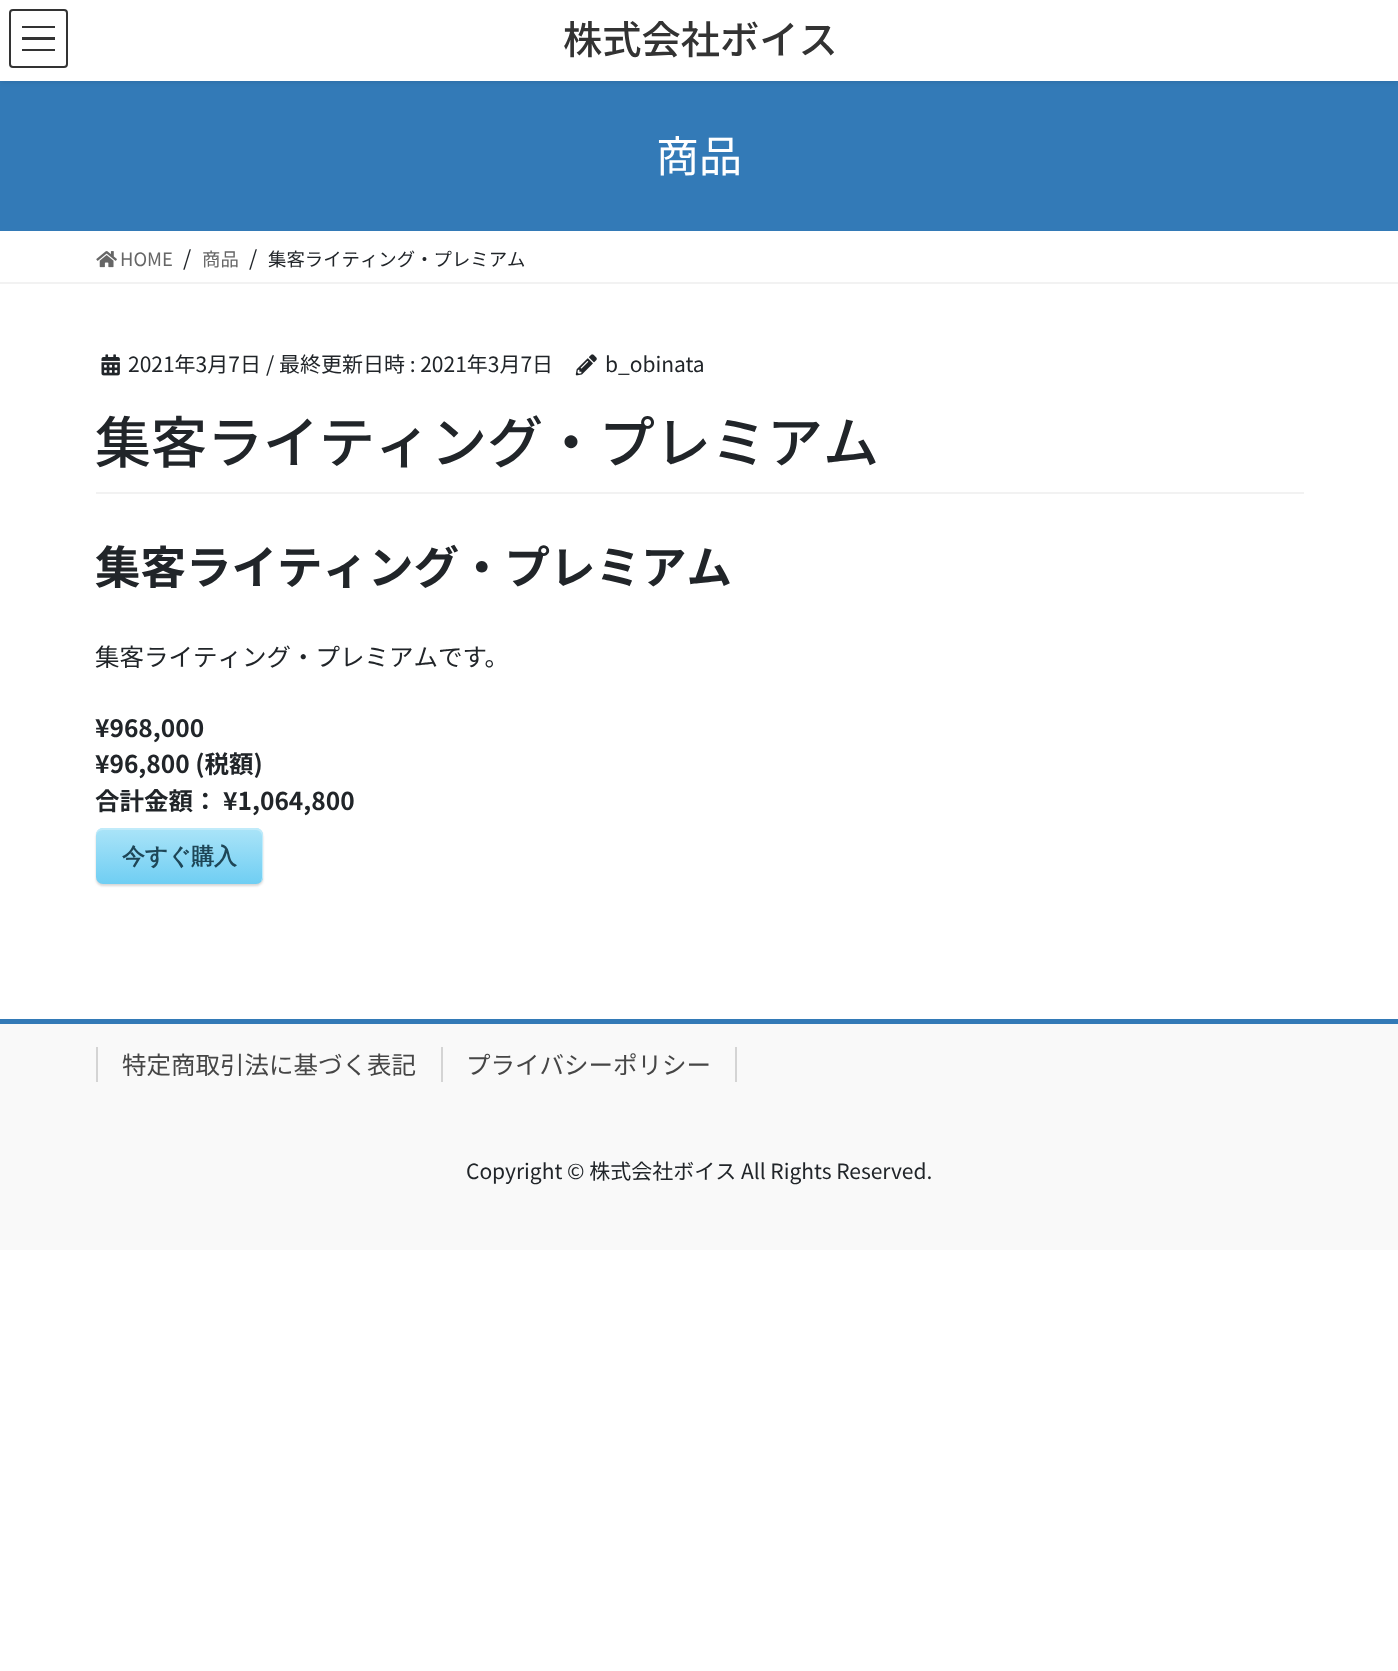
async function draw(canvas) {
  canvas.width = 1398;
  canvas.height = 1671;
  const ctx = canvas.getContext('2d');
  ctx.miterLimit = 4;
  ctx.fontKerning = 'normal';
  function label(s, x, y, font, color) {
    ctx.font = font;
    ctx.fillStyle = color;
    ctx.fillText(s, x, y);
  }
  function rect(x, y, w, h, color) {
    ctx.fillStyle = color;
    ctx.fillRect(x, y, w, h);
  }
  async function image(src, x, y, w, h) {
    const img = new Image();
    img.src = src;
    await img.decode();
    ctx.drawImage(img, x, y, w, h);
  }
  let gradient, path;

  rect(0, 0, 1398, 1671, '#fff');
  rect(0, 81, 1398, 150, '#337ab7');
  ctx.fillStyle = '#0000001a';
  ctx.filter = 'blur(2.5px)';
  ctx.beginPath();
  ctx.rect(0, 2, 1398, 80);
  ctx.fill();
  ctx.filter = 'none';
  rect(0, 0, 1398, 81, '#fff');
  rect(22, 26, 33, 2, '#333');
  rect(22, 37, 33, 3, '#333');
  rect(22, 49, 33, 2, '#333');
  ctx.beginPath();
  ctx.roundRect(10, 10, 57, 57, 3);
  ctx.strokeStyle = '#333';
  ctx.lineWidth = 2;
  ctx.stroke();
  label('株式会社ボイス', 563, 54, '500 39.25px Noto Sans JP', '#333');
  label('商品', 656, 172, '43px Noto Sans JP', '#fff');
  rect(0, 282, 1398, 2, '#f2f2f2');
  await image('assets/img1.png', 96, 251, 21, 17);
  label('HOME', 120, 266, '18.4px Noto Sans JP', '#666');
  label('/', 183, 266, '21px Noto Sans JP', '#212529');
  label('商品', 202, 266, '18.4px Noto Sans JP', '#666');
  label('/', 249, 266, '21px Noto Sans JP', '#212529');
  label('集客ライティング・プレミアム', 268, 266, '18.4px Noto Sans JP', '#212529');
  rect(96, 492, 1208, 2, '#f2f2f2');
  await image('assets/img2.png', 101, 354, 19, 22);
  label('2021年3月7日', 128, 372, '21px Noto Sans JP', '#212529');
  label('/ 最終更新日時 : 2021年3月7日', 266, 372, '21px Noto Sans JP', '#212529');
  await image('assets/img3.png', 575, 354, 22, 22);
  label('b_obinata', 605, 372, '21px Noto Sans JP', '#212529');
  label('集客ライティング・プレミアム', 95, 463, '500 56px Noto Sans JP', '#212529');
  label('集客ライティング・プレミアム', 95, 584, 'bold 45.5px Noto Sans JP', '#212529');
  label('集客ライティング・プレミアムです。', 95, 666, '24.5px Noto Sans JP', '#212529');
  label('¥968,000', 95, 737, 'bold 24.5px Noto Sans JP', '#212529');
  label('¥96,800 (税額)', 95, 773, 'bold 24.5px Noto Sans JP', '#212529');
  label('合計金額： ¥1,064,800', 95, 810, 'bold 24.5px Noto Sans JP', '#212529');
  ctx.fillStyle = '#d6d6d6';
  ctx.filter = 'blur(1px)';
  ctx.beginPath();
  ctx.roundRect(96, 830, 167, 56, 7);
  ctx.fill();
  ctx.filter = 'none';
  gradient = ctx.createLinearGradient(96, 828, 96, 884);
  gradient.addColorStop(0, '#abe4f8');
  gradient.addColorStop(1, '#6fcef3');
  ctx.fillStyle = gradient;
  ctx.beginPath();
  ctx.roundRect(96, 828, 167, 56, 7);
  ctx.fill();
  ctx.fillStyle = '#c0ebfa';
  path = new Path2D('M103 830H256C259 830 262 833 262 836V878L261 882C262 880 263 879 263 877V835C263 831 260 828 256 828H103C99 828 96 831 96 835V836C96 833 99 830 103 830Z');
  ctx.fill(path);
  label('今すぐ購入', 122, 864, 'bold 22.75px WenQuanYi Zen Hei', '#1e4657');
  rect(0, 1024, 1398, 226, '#f9f9f9');
  rect(0, 1019, 1398, 5, '#337ab7');
  label('特定商取引法に基づく表記', 122, 1074, '24.5px Noto Sans JP', '#464646');
  rect(96, 1047, 2, 35, '#d4d4d4');
  label('プライバシーポリシー', 466, 1074, '24.5px Noto Sans JP', '#464646');
  rect(735, 1047, 2, 35, '#d4d4d4');
  rect(441, 1047, 2, 35, '#d4d4d4');
  label('Copyright © 株式会社ボイス All Rights Reserved.', 466, 1179, '21px Noto Sans JP', '#212529');
}

draw(document.querySelector('canvas'));
